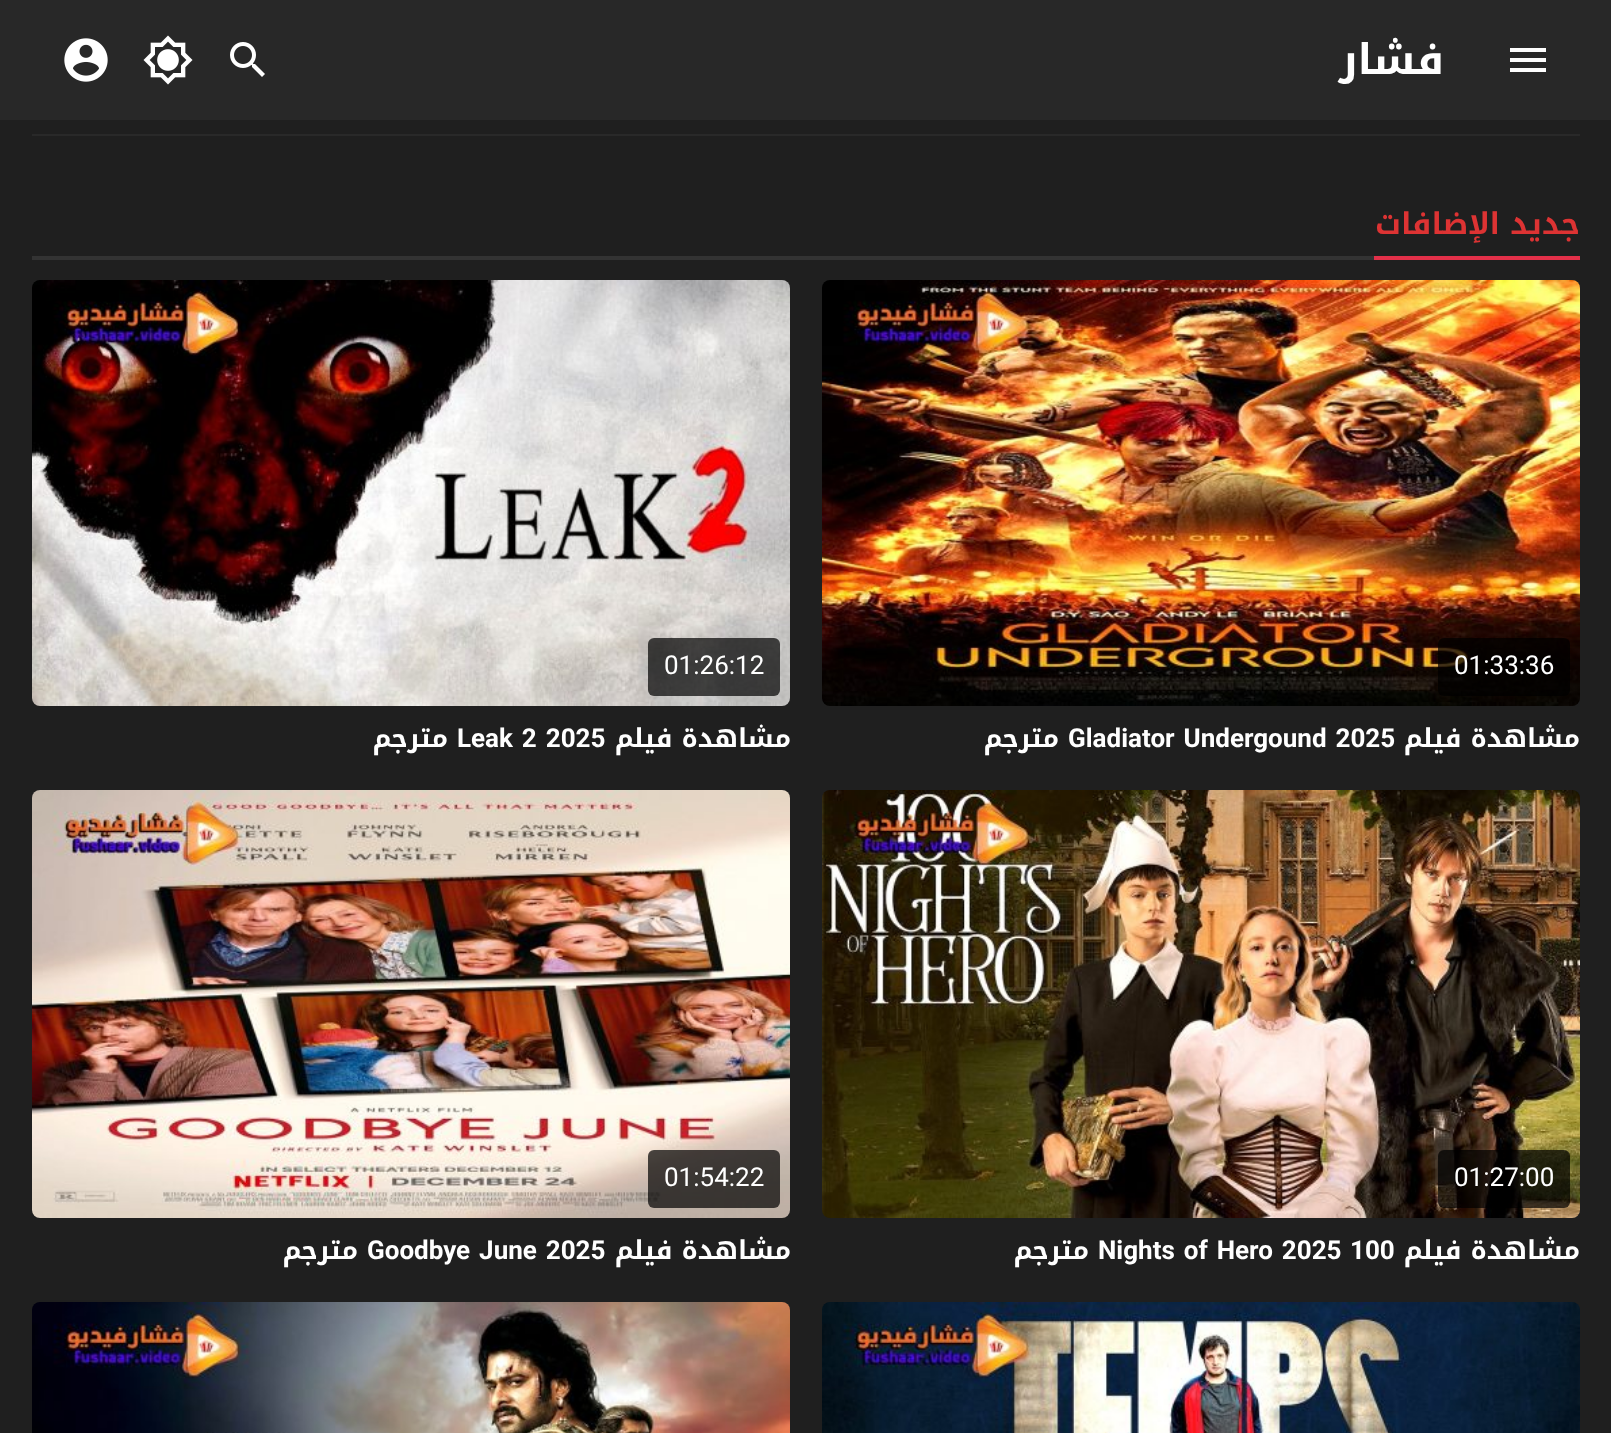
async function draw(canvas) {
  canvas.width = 1611;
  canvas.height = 1433;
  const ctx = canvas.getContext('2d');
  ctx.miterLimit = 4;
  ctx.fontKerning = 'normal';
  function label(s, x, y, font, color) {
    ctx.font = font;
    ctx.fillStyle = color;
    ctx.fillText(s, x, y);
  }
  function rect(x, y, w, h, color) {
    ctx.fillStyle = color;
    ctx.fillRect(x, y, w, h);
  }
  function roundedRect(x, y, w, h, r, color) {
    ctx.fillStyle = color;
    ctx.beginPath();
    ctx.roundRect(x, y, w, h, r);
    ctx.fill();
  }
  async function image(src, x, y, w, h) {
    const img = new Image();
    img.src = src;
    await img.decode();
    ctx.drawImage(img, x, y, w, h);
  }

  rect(0, 0, 1611, 1433, '#1f1f1f');
  rect(0, 0, 1611, 120, '#282828');
  await image('assets/img1.png', 64, 38, 44, 44);
  await image('assets/img2.png', 143, 35, 50, 50);
  await image('assets/img3.png', 230, 42, 35, 35);
  ctx.direction = 'rtl';
  label('فشار', 1444, 74, 'bold 42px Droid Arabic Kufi', '#fff');
  await image('assets/img4.png', 1510, 48, 36, 24);
  rect(32, 134, 1548, 2, '#292929');
  rect(32, 256, 1342, 4, '#333');
  rect(1374, 256, 206, 4, '#e33049');
  label('جديد الإضافات', 1580, 234, 'bold 30px Droid Arabic Kufi', '#d33');
  await image('assets/img5.png', 32, 280, 758, 426);
  roundedRect(648, 638, 132, 58, 6, '#000000b3');
  ctx.direction = 'ltr';
  label('01:26:12', 664, 674, '26px Roboto', '#fff');
  ctx.direction = 'rtl';
  label('مترجم', 448, 747, 'bold 26px Droid Arabic Kufi', '#fff');
  ctx.wordSpacing = '2.5px';
  ctx.direction = 'ltr';
  label('Leak 2 2025', 457, 747, 'bold 26px Roboto', '#fff');
  ctx.wordSpacing = '0px';
  ctx.direction = 'rtl';
  label('مشاهدة فيلم', 791, 747, 'bold 26px Droid Arabic Kufi', '#fff');
  await image('assets/img6.png', 822, 280, 758, 426);
  roundedRect(1438, 638, 132, 58, 6, '#000000b3');
  ctx.direction = 'ltr';
  label('01:33:36', 1454, 674, '26px Roboto', '#fff');
  ctx.direction = 'rtl';
  label('مترجم', 1059, 747, 'bold 26px Droid Arabic Kufi', '#fff');
  ctx.wordSpacing = '2.5px';
  ctx.direction = 'ltr';
  label('Gladiator Undergound 2025', 1068, 747, 'bold 26px Roboto', '#fff');
  ctx.wordSpacing = '0px';
  ctx.direction = 'rtl';
  label('مشاهدة فيلم', 1580, 747, 'bold 26px Droid Arabic Kufi', '#fff');
  await image('assets/img7.png', 32, 790, 758, 428);
  roundedRect(648, 1150, 132, 58, 6, '#000000b3');
  ctx.direction = 'ltr';
  label('01:54:22', 664, 1186, '26px Roboto', '#fff');
  ctx.direction = 'rtl';
  label('مترجم', 358, 1259, 'bold 26px Droid Arabic Kufi', '#fff');
  ctx.wordSpacing = '2.5px';
  ctx.direction = 'ltr';
  label('Goodbye June 2025', 367, 1259, 'bold 26px Roboto', '#fff');
  ctx.wordSpacing = '0px';
  ctx.direction = 'rtl';
  label('مشاهدة فيلم', 791, 1259, 'bold 26px Droid Arabic Kufi', '#fff');
  await image('assets/img8.png', 822, 790, 758, 428);
  roundedRect(1438, 1150, 132, 58, 6, '#000000b3');
  ctx.direction = 'ltr';
  label('01:27:00', 1454, 1186, '26px Roboto', '#fff');
  ctx.direction = 'rtl';
  label('مترجم', 1089, 1259, 'bold 26px Droid Arabic Kufi', '#fff');
  ctx.wordSpacing = '2.5px';
  ctx.direction = 'ltr';
  label('Nights of Hero 2025', 1098, 1259, 'bold 26px Roboto', '#fff');
  ctx.wordSpacing = '0px';
  label('100', 1350, 1259, 'bold 26px Roboto', '#fff');
  ctx.direction = 'rtl';
  label('مشاهدة فيلم', 1580, 1259, 'bold 26px Droid Arabic Kufi', '#fff');
  await image('assets/img9.png', 32, 1302, 758, 131);
  await image('assets/img10.png', 822, 1302, 758, 131);
}

draw(document.querySelector('canvas'));
